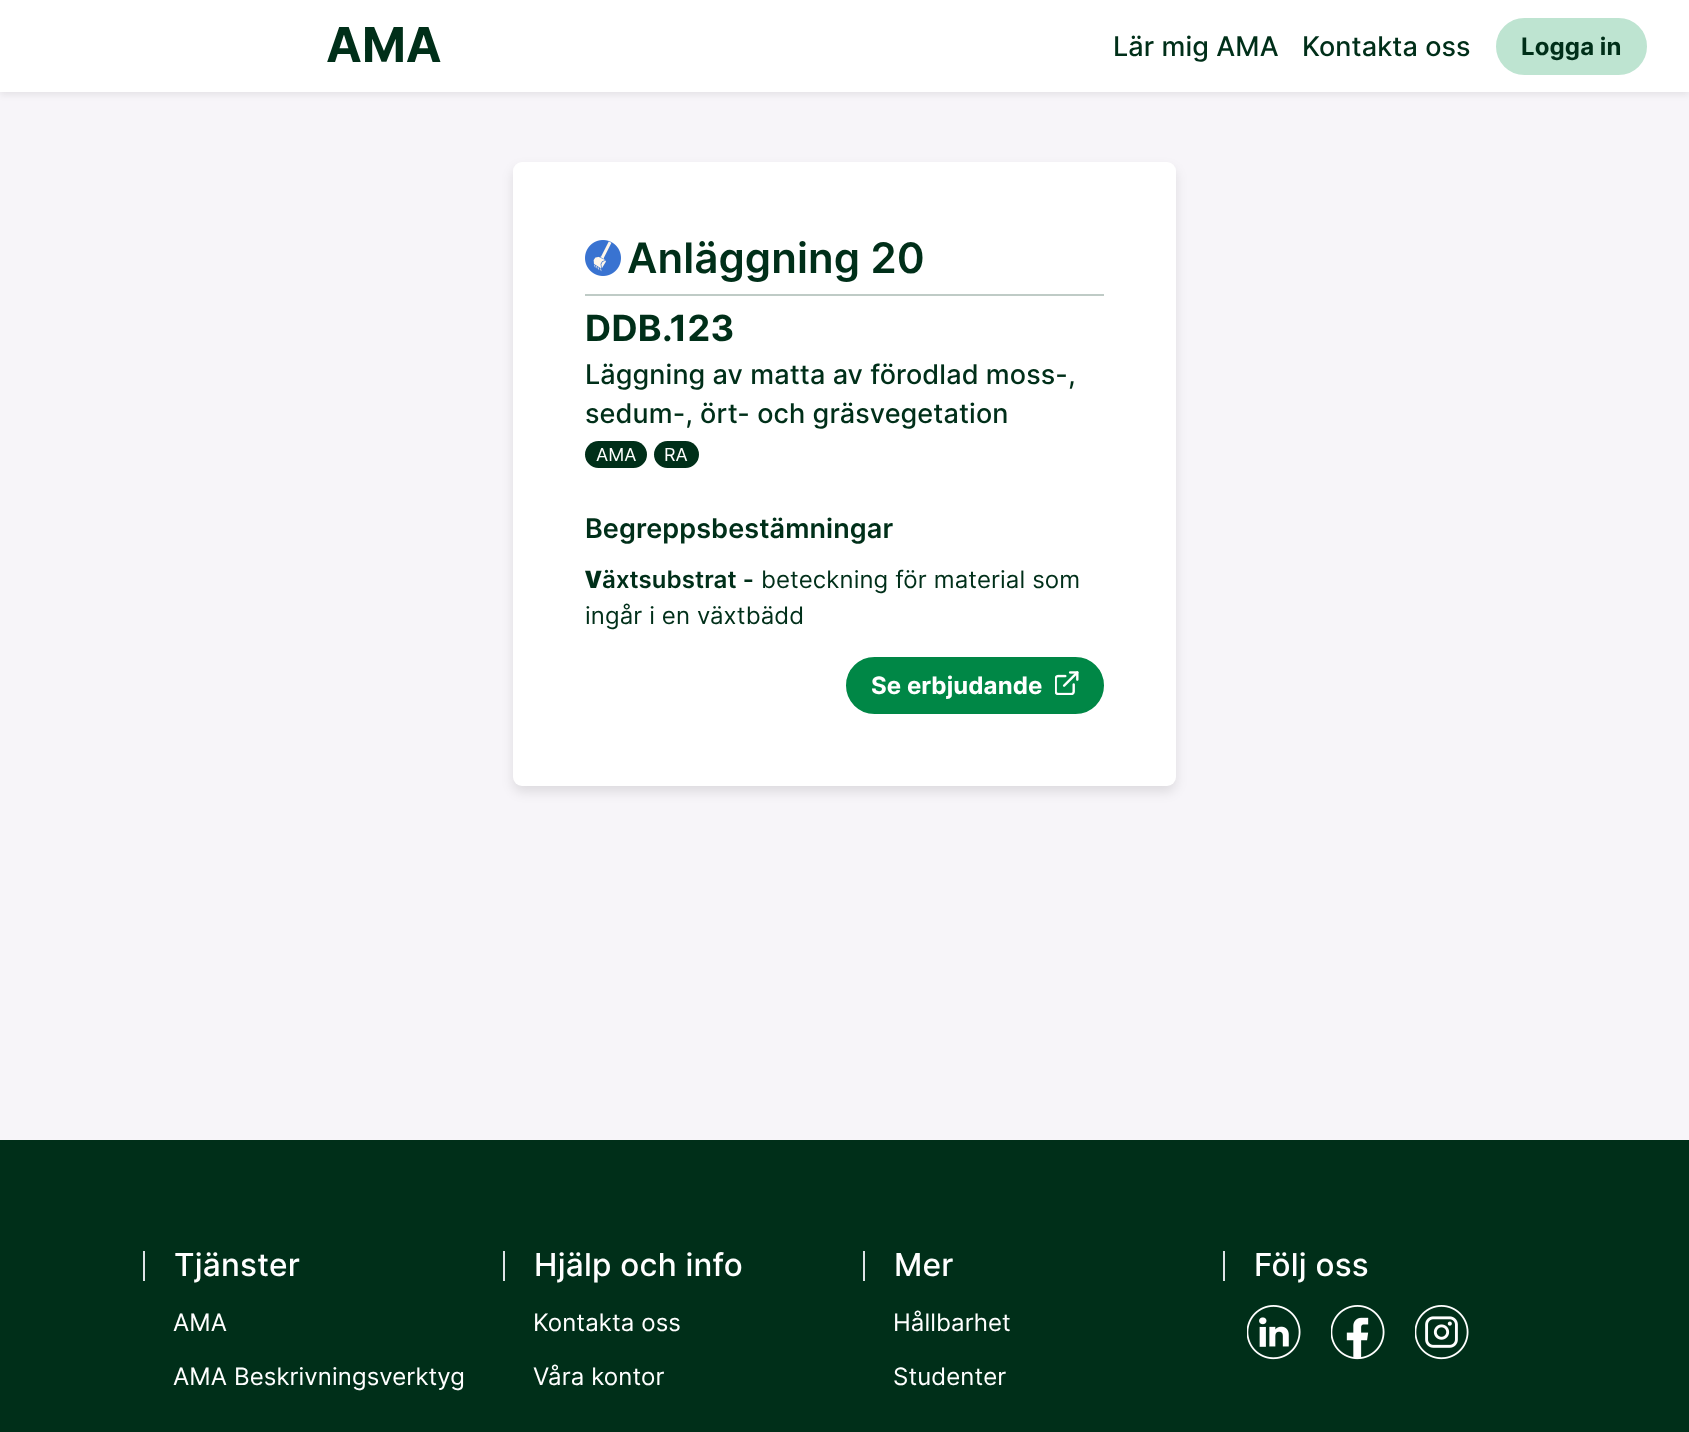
async function draw(canvas) {
  canvas.width = 1689;
  canvas.height = 1432;
  const ctx = canvas.getContext('2d');
  ctx.miterLimit = 4;
  ctx.fontKerning = 'normal';
  function label(s, x, y, font, color) {
    ctx.font = font;
    ctx.fillStyle = color;
    ctx.fillText(s, x, y);
  }
  function rect(x, y, w, h, color) {
    ctx.fillStyle = color;
    ctx.fillRect(x, y, w, h);
  }
  function roundedRect(x, y, w, h, r, color) {
    ctx.fillStyle = color;
    ctx.beginPath();
    ctx.roundRect(x, y, w, h, r);
    ctx.fill();
  }
  async function image(src, x, y, w, h) {
    const img = new Image();
    img.src = src;
    await img.decode();
    ctx.drawImage(img, x, y, w, h);
  }

  rect(0, 0, 1689, 1432, '#f7f5f9');
  ctx.fillStyle = '#00000012';
  ctx.filter = 'blur(3px)';
  ctx.beginPath();
  ctx.rect(0, 3, 1689, 92);
  ctx.fill();
  ctx.filter = 'none';
  rect(0, 0, 1689, 92, '#fff');
  label('AMA', 326, 62, 'bold 48px Inter', '#002f19');
  ctx.letterSpacing = '0.1px';
  label('Lär mig AMA', 1113, 56, '500 27px Inter', '#002f19');
  label('Kontakta oss', 1302, 56, '500 27px Inter', '#002f19');
  ctx.fillStyle = '#bee4d1';
  ctx.beginPath();
  ctx.roundRect(1497, 19, 149, 55, 27.5);
  ctx.fill();
  ctx.strokeStyle = '#bee4d1';
  ctx.lineWidth = 2;
  ctx.stroke();
  label('Logga in', 1521, 55, 'bold 24px Inter', '#002f19');
  ctx.fillStyle = '#0000001a';
  ctx.filter = 'blur(6px)';
  ctx.beginPath();
  ctx.roundRect(513, 168, 663, 624, 9);
  ctx.fill();
  ctx.filter = 'none';
  roundedRect(513, 162, 663, 624, 9, '#fff');
  await image('assets/img1.png', 585, 240, 36, 36);
  label('Anläggning 20', 627, 273, '600 42px Inter', '#002f19');
  rect(585, 294, 519, 2, '#bfcbc6');
  ctx.letterSpacing = '0.25px';
  label('DDB.123', 585, 341, 'bold 36px Inter', '#002f19');
  ctx.letterSpacing = '0.1px';
  label('Läggning av matta av förodlad moss-,', 585, 384, '500 27px Inter', '#002f19');
  label('sedum-, ört- och gräsvegetation', 585, 423, '500 27px Inter', '#002f19');
  roundedRect(585, 441, 62, 27, 13.5, '#002f19');
  ctx.letterSpacing = '0px';
  label('AMA', 596, 461, '18px Inter', '#fff');
  roundedRect(654, 441, 45, 27, 13.5, '#002f19');
  label('RA', 664, 461, '18px Inter', '#fff');
  ctx.letterSpacing = '0.1px';
  label('Begreppsbestämningar', 585, 538, '600 27px Inter', '#002f19');
  label('V', 585, 588, '900 24px Noto Sans', '#002f19');
  label('äxtsubstrat -', 602, 588, '600 24px Inter', '#002f19');
  label('beteckning för material som', 761, 588, '24px Inter', '#002f19');
  label('ingår i en växtbädd', 585, 624, '24px Inter', '#002f19');
  ctx.fillStyle = '#008746';
  ctx.beginPath();
  ctx.roundRect(847, 658, 256, 55, 27.5);
  ctx.fill();
  ctx.strokeStyle = '#008746';
  ctx.stroke();
  label('Se erbjudande', 871, 694, 'bold 24px Inter', '#fff');
  await image('assets/img2.png', 1055, 671, 24, 24);
  rect(0, 1140, 1689, 292, '#002f19');
  rect(143, 1251, 2, 30, '#dee2e6');
  ctx.letterSpacing = '0.25px';
  label('Tjänster', 174, 1276, '500 31.5px Inter', '#fff');
  ctx.letterSpacing = '0.1px';
  label('AMA', 173, 1331, '24px Inter', '#fff');
  label('AMA Beskrivningsverktyg', 173, 1385, '24px Inter', '#fff');
  rect(503, 1251, 2, 30, '#dee2e6');
  ctx.letterSpacing = '0.25px';
  label('Hjälp och info', 534, 1276, '500 31.5px Inter', '#fff');
  ctx.letterSpacing = '0.1px';
  label('Kontakta oss', 533, 1331, '24px Inter', '#fff');
  label('Våra kontor', 533, 1385, '24px Inter', '#fff');
  rect(863, 1251, 2, 30, '#dee2e6');
  ctx.letterSpacing = '0.25px';
  label('Mer', 894, 1276, '500 31.5px Inter', '#fff');
  ctx.letterSpacing = '0.1px';
  label('Hållbarhet', 893, 1331, '24px Inter', '#fff');
  label('Studenter', 893, 1385, '24px Inter', '#fff');
  rect(1223, 1251, 2, 30, '#dee2e6');
  ctx.letterSpacing = '0.25px';
  label('Följ oss', 1254, 1276, '500 31.5px Inter', '#fff');
  await image('assets/img3.png', 1247, 1305, 54, 55);
  await image('assets/img4.png', 1331, 1305, 54, 55);
  await image('assets/img5.png', 1415, 1305, 54, 55);
}

draw(document.querySelector('canvas'));
